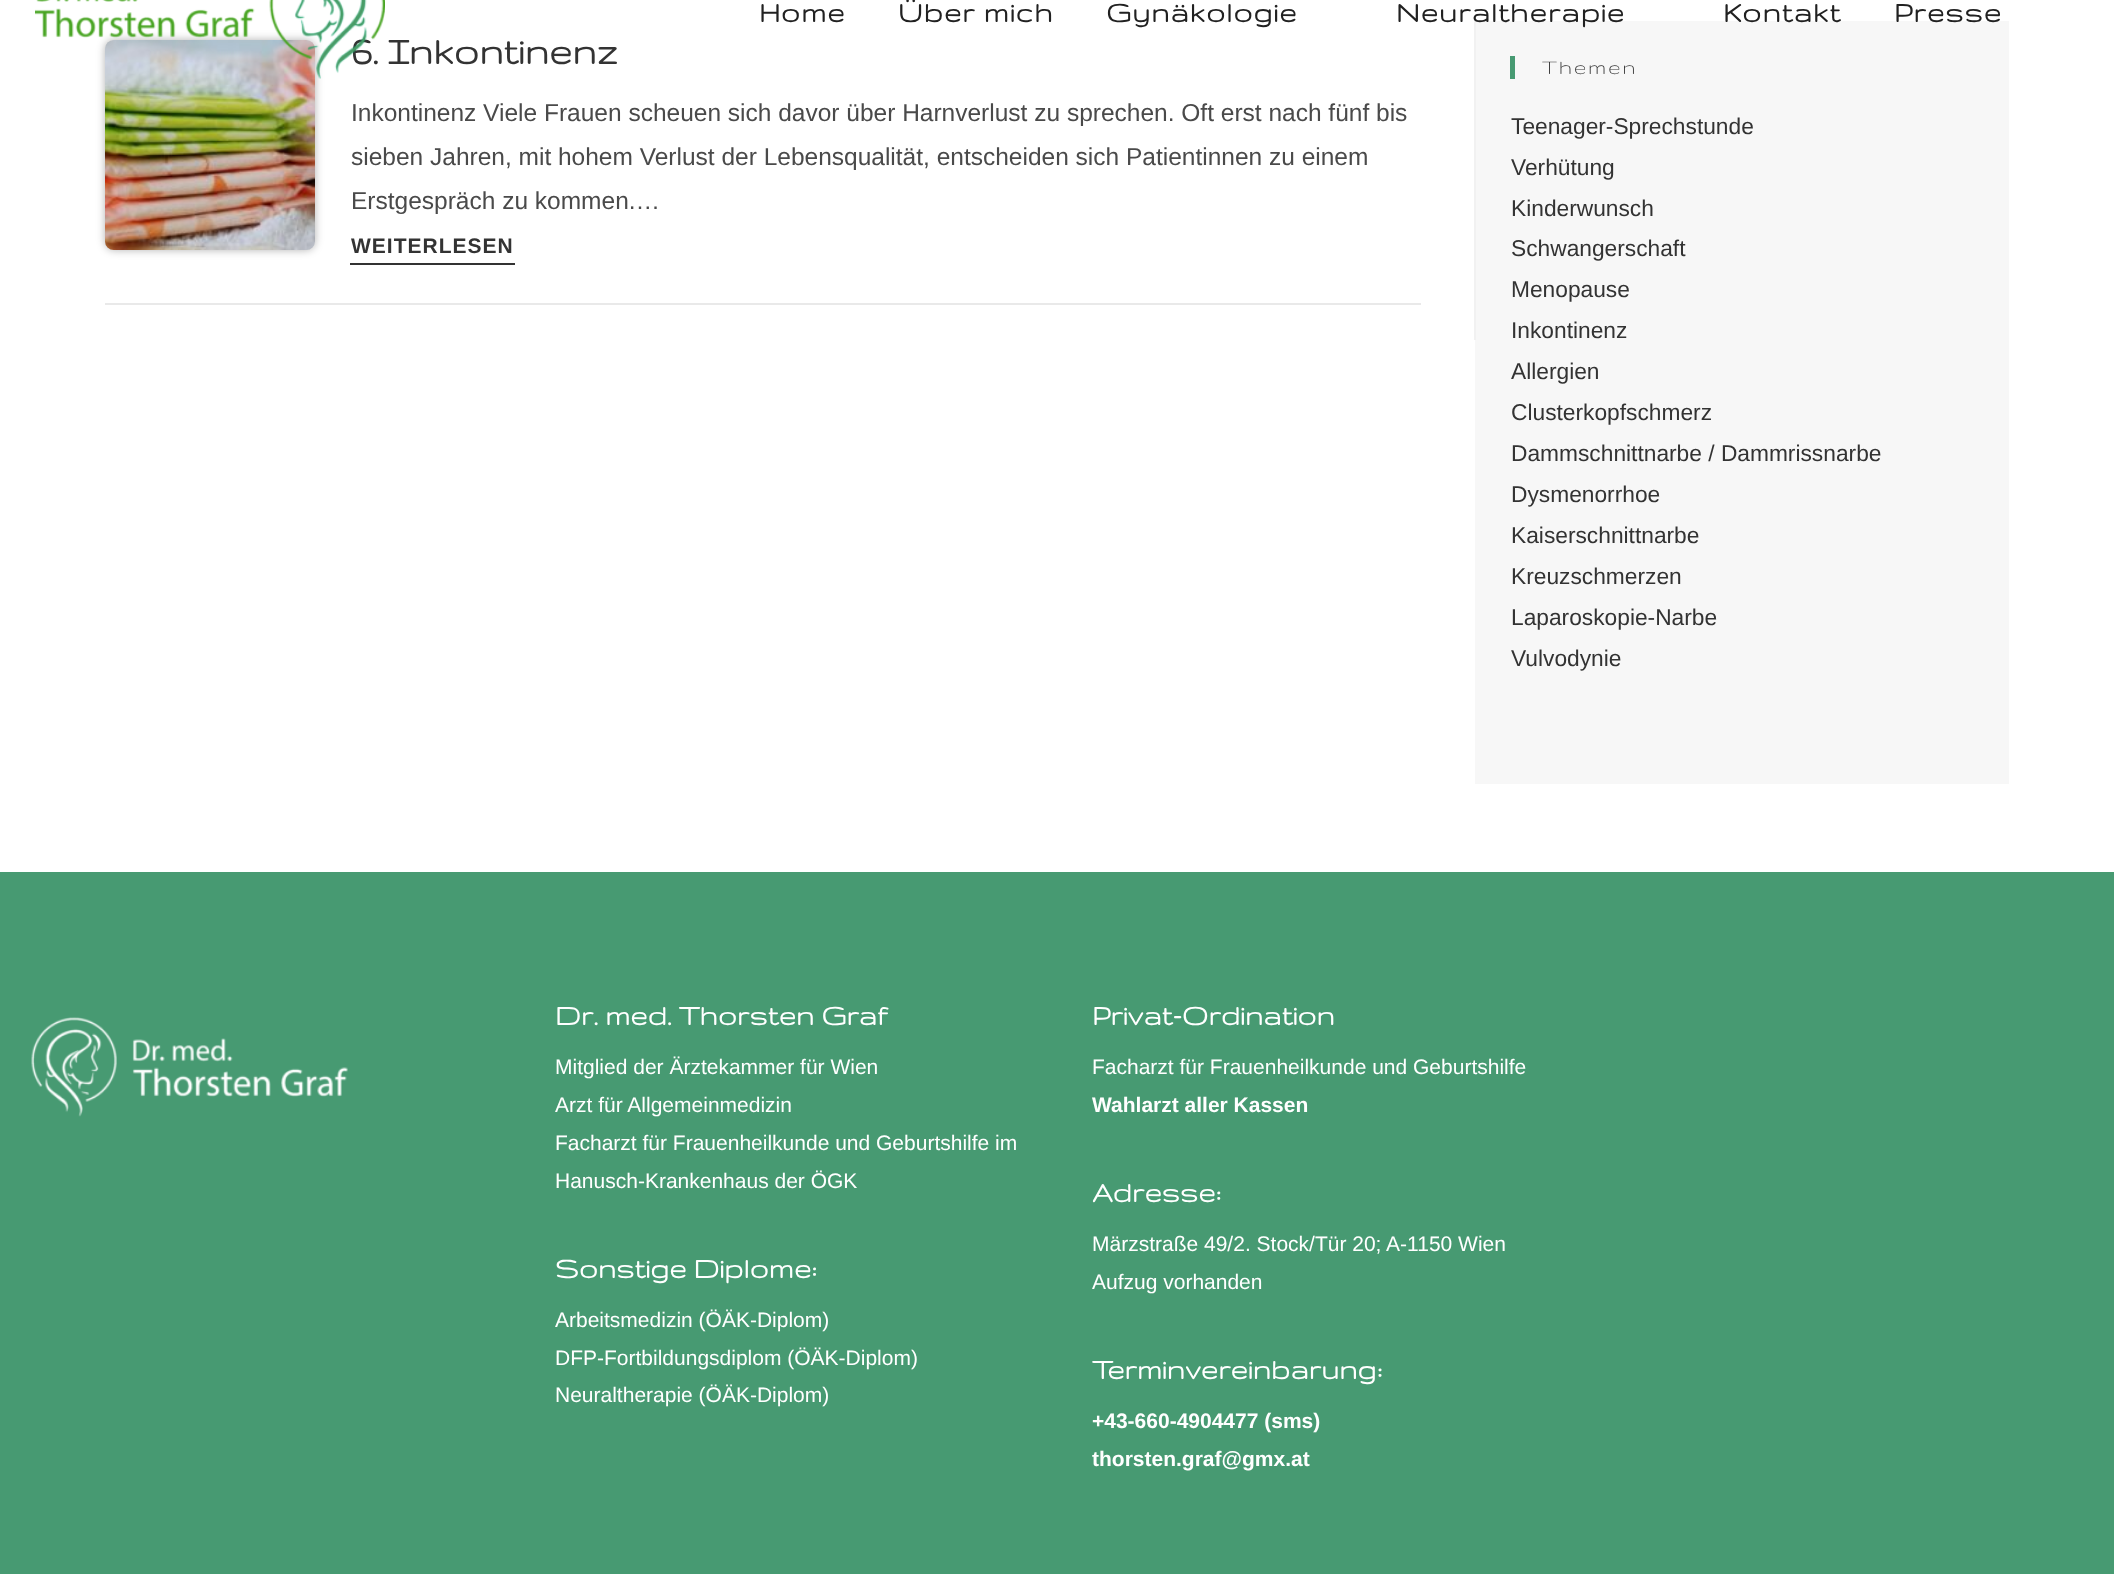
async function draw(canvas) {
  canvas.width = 2114;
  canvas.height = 1574;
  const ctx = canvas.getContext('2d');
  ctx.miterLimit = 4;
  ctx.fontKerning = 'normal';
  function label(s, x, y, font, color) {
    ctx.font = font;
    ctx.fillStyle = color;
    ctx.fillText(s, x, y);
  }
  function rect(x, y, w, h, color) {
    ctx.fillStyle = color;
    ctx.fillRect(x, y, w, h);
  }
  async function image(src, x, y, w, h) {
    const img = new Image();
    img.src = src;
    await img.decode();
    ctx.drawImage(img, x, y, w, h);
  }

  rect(0, 0, 2114, 1574, '#fff');
  ctx.fillStyle = '#0000004d';
  ctx.filter = 'blur(4.5px)';
  ctx.beginPath();
  ctx.roundRect(105, 40, 210, 210, 9);
  ctx.fill();
  ctx.filter = 'none';
  await image('assets/img2.png', 105, 40, 210, 210);
  label('6. Inkontinenz', 351, 64, 'bold 42px Gruppo', '#333');
  await image('assets/img1.png', 35, 0, 350, 79);
  ctx.letterSpacing = '1px';
  label('Home', 759, 22, 'bold 31.5px Gruppo', '#212121');
  label('Über mich', 898, 22, 'bold 31.5px Gruppo', '#212121');
  label('Gynäkologie', 1106, 22, 'bold 31.5px Gruppo', '#212121');
  rect(1475, 21, 534, 763, '#f7f7f7');
  rect(1474, 21, 2, 319, '#f1f1f1');
  label('Neuraltherapie', 1396, 22, 'bold 31.5px Gruppo', '#212121');
  label('Kontakt', 1723, 22, 'bold 31.5px Gruppo', '#212121');
  label('Presse', 1894, 22, 'bold 31.5px Gruppo', '#212121');
  rect(105, 303, 1316, 2, '#e9e9e9');
  ctx.letterSpacing = '0px';
  label('Inkontinenz Viele Frauen scheuen sich davor über Harnverlust zu sprechen. Oft erst nach fünf bis', 351, 121, '24.5px Liberation Sans', '#4a4a4a');
  label('sieben Jahren, mit hohem Verlust der Lebensqualität, entscheiden sich Patientinnen zu einem', 351, 165, '24.5px Liberation Sans', '#4a4a4a');
  label('Erstgespräch zu kommen.…', 351, 209, '24.5px Liberation Sans', '#4a4a4a');
  rect(350, 263, 165, 2, '#333');
  ctx.letterSpacing = '1px';
  label('WEITERLESEN', 351, 253, 'bold 21px Liberation Sans', '#333');
  rect(1510, 56, 5, 23, '#479a72');
  ctx.letterSpacing = '1.75px';
  label('Themen', 1542, 74, '22.75px Gruppo', '#333');
  ctx.letterSpacing = '0px';
  label('Teenager-Sprechstunde', 1511, 134, '22.75px Liberation Sans', '#333');
  label('Verhütung', 1511, 175, '22.75px Liberation Sans', '#333');
  label('Kinderwunsch', 1511, 216, '22.75px Liberation Sans', '#333');
  label('Schwangerschaft', 1511, 256, '22.75px Liberation Sans', '#333');
  label('Menopause', 1511, 297, '22.75px Liberation Sans', '#333');
  label('Inkontinenz', 1511, 338, '22.75px Liberation Sans', '#333');
  label('Allergien', 1511, 379, '22.75px Liberation Sans', '#333');
  label('Clusterkopfschmerz', 1511, 420, '22.75px Liberation Sans', '#333');
  label('Dammschnittnarbe / Dammrissnarbe', 1511, 461, '22.75px Liberation Sans', '#333');
  label('Dysmenorrhoe', 1511, 502, '22.75px Liberation Sans', '#333');
  label('Kaiserschnittnarbe', 1511, 543, '22.75px Liberation Sans', '#333');
  label('Kreuzschmerzen', 1511, 584, '22.75px Liberation Sans', '#333');
  label('Laparoskopie-Narbe', 1511, 625, '22.75px Liberation Sans', '#333');
  label('Vulvodynie', 1511, 666, '22.75px Liberation Sans', '#333');
  rect(0, 872, 2114, 702, '#479a72');
  await image('assets/img3.png', 31, 1017, 317, 100);
  label('Dr. med. Thorsten Graf', 555, 1025, 'bold 31.5px Gruppo', '#fff');
  label('Mitglied der Ärztekammer für Wien', 555, 1074, '21px Liberation Sans', '#fff');
  label('Arzt für Allgemeinmedizin', 555, 1112, '21px Liberation Sans', '#fff');
  label('Facharzt für Frauenheilkunde und Geburtshilfe im', 555, 1150, '21px Liberation Sans', '#fff');
  label('Hanusch-Krankenhaus der ÖGK', 555, 1188, '21px Liberation Sans', '#fff');
  label('Sonstige Diplome:', 555, 1278, 'bold 31.5px Gruppo', '#fff');
  label('Arbeitsmedizin (ÖÄK-Diplom)', 555, 1327, '21px Liberation Sans', '#fff');
  label('DFP-Fortbildungsdiplom (ÖÄK-Diplom)', 555, 1365, '21px Liberation Sans', '#fff');
  label('Neuraltherapie (ÖÄK-Diplom)', 555, 1402, '21px Liberation Sans', '#fff');
  label('Privat-Ordination', 1092, 1025, 'bold 31.5px Gruppo', '#fff');
  label('Facharzt für Frauenheilkunde und Geburtshilfe', 1092, 1074, '21px Liberation Sans', '#fff');
  label('Wahlarzt aller Kassen', 1092, 1112, 'bold 21px Liberation Sans', '#fff');
  label('Adresse:', 1092, 1202, 'bold 31.5px Gruppo', '#fff');
  label('Märzstraße 49/2. Stock/Tür 20; A-1150 Wien', 1092, 1251, '21px Liberation Sans', '#fff');
  label('Aufzug vorhanden', 1092, 1289, '21px Liberation Sans', '#fff');
  label('Terminvereinbarung:', 1092, 1379, 'bold 31.5px Gruppo', '#fff');
  label('+43-660-4904477 (sms)', 1092, 1428, 'bold 21px Liberation Sans', '#fff');
  label('thorsten.graf@gmx.at', 1092, 1466, 'bold 21px Liberation Sans', '#fff');
}

draw(document.querySelector('canvas'));
